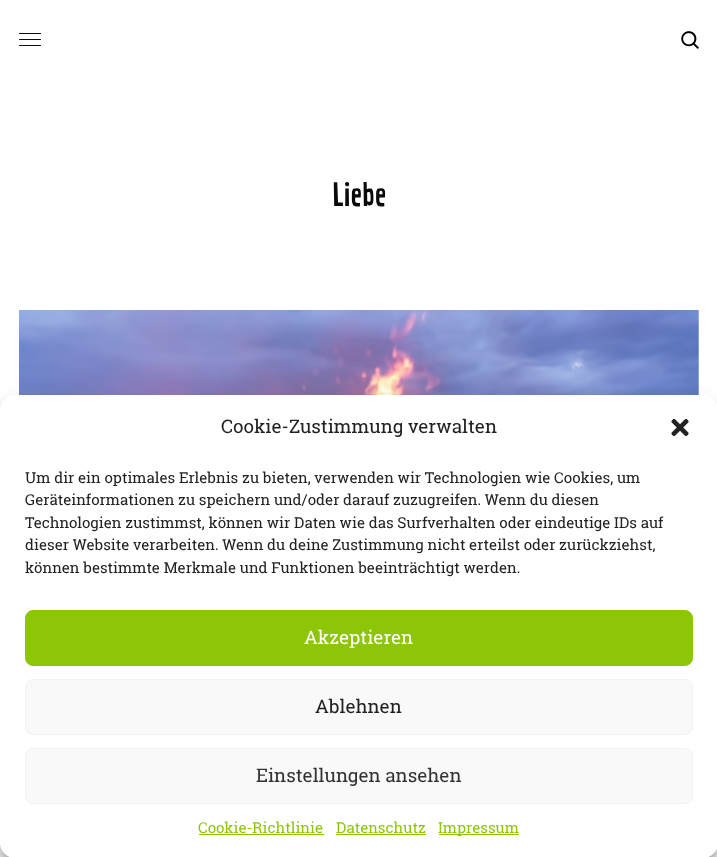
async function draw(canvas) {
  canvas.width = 717;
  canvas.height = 857;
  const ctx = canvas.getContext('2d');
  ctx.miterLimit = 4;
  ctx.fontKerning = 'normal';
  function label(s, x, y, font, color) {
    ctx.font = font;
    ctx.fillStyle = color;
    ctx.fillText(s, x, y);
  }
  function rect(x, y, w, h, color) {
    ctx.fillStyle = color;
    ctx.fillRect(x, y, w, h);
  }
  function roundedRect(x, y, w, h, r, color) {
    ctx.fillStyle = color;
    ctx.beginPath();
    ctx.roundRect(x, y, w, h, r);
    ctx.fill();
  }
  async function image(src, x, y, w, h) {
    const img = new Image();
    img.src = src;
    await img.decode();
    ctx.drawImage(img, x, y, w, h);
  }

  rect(0, 0, 717, 857, '#fff');
  roundedRect(19, 33, 22, 1, 0.5, '#0a0a0a');
  roundedRect(19, 39, 22, 1, 0.5, '#0a0a0a');
  roundedRect(19, 45, 22, 1, 0.5, '#0a0a0a');
  await image('assets/img1.png', 681, 31, 18, 18);
  label('Liebe', 332, 206, '30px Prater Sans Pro', '#0a0a0a');
  await image('assets/img2.png', 19, 310, 680, 85);
  ctx.fillStyle = '#0000003b';
  ctx.filter = 'blur(4px)';
  ctx.beginPath();
  ctx.roundRect(0, 403, 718, 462, 15);
  ctx.fill();
  ctx.filter = 'none';
  ctx.fillStyle = '#00000030';
  ctx.filter = 'blur(12.5px)';
  ctx.beginPath();
  ctx.roundRect(0, 408, 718, 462, 15);
  ctx.fill();
  ctx.filter = 'none';
  roundedRect(0, 395, 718, 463, 15, '#fff');
  label('Cookie-Zustimmung verwalten', 221, 433, '18.75px Roboto Slab', '#222');
  await image('assets/img3.png', 671, 418, 18, 18);
  label('Um dir ein optimales Erlebnis zu bieten, verwenden wir Technologien wie Cookies, um', 25, 483, '15px Roboto Slab', '#222');
  label('Geräteinformationen zu speichern und/oder darauf zuzugreifen. Wenn du diesen', 25, 505, '15px Roboto Slab', '#222');
  label('Technologien zustimmst, können wir Daten wie das Surfverhalten oder eindeutige IDs auf', 25, 528, '15px Roboto Slab', '#222');
  label('dieser Website verarbeiten. Wenn du deine Zustimmung nicht erteilst oder zurückziehst,', 25, 550, '15px Roboto Slab', '#222');
  label('können bestimmte Merkmale und Funktionen beeinträchtigt werden.', 25, 573, '15px Roboto Slab', '#222');
  ctx.fillStyle = '#8dc607';
  ctx.beginPath();
  ctx.roundRect(25.5, 610.5, 667, 55, 7.5);
  ctx.fill();
  ctx.strokeStyle = '#8dc607';
  ctx.stroke();
  label('Akzeptieren', 304, 644, '18.75px Roboto Slab', '#fff');
  ctx.fillStyle = '#f9f9f9';
  ctx.beginPath();
  ctx.roundRect(25.5, 679.5, 667, 55, 7.5);
  ctx.fill();
  ctx.strokeStyle = '#f2f2f2';
  ctx.stroke();
  label('Ablehnen', 315, 713, '18.75px Roboto Slab', '#222');
  ctx.fillStyle = '#f9f9f9';
  ctx.beginPath();
  ctx.roundRect(25.5, 748.5, 667, 55, 7.5);
  ctx.fill();
  ctx.stroke();
  label('Einstellungen ansehen', 256, 782, '18.75px Roboto Slab', '#333');
  label('Cookie-Richtlinie', 198, 833, '15px Roboto Slab', '#8dc607');
  rect(199, 834, 125, 1, '#8dc607');
  label('Datenschutz', 336, 833, '15px Roboto Slab', '#8dc607');
  rect(336, 834, 90, 1, '#8dc607');
  rect(439, 834, 80, 1, '#8dc607');
  label('Impressum', 438, 833, '15px Roboto Slab', '#8dc607');
}

draw(document.querySelector('canvas'));
